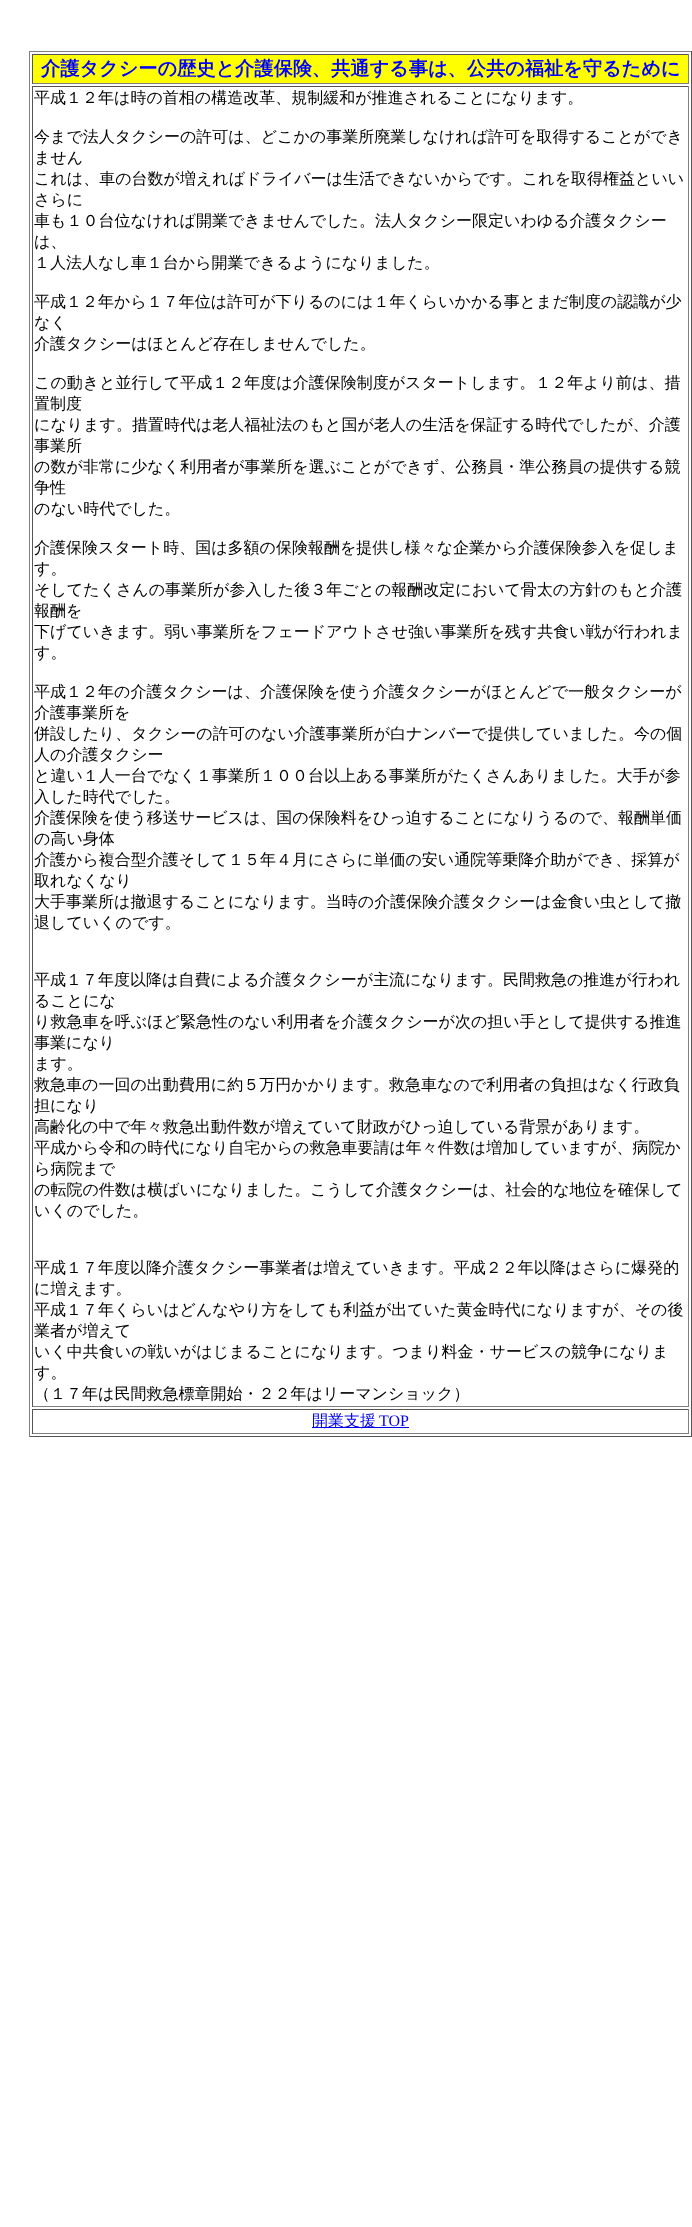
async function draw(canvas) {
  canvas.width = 692;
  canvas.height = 2227;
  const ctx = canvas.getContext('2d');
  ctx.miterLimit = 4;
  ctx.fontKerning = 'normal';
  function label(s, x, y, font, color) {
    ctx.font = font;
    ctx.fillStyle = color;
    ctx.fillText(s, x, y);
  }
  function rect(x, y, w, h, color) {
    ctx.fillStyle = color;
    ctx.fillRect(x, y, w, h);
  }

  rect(0, 0, 692, 2227, '#fff');
  rect(29, 51, 663, 1, '#808080');
  rect(691, 51, 1, 1386, '#555');
  rect(29, 1436, 663, 1, '#555');
  rect(29, 51, 1, 1386, '#808080');
  rect(33, 55, 655, 28, '#ff0');
  rect(32, 54, 657, 1, '#555');
  rect(688, 54, 1, 30, '#808080');
  rect(32, 83, 657, 1, '#808080');
  rect(32, 54, 1, 30, '#555');
  label('介護タクシーの歴史と介護保険、共通する事は、公共の福祉を守るために', 41, 75, 'bold 19.2px WenQuanYi Zen Hei', '#00f');
  rect(32, 86, 657, 1, '#555');
  rect(688, 86, 1, 1321, '#808080');
  rect(32, 1406, 657, 1, '#808080');
  rect(32, 86, 1, 1321, '#555');
  label('平成１２年は時の首相の構造改革、規制緩和が推進されることになります。', 34, 103, '500 16px WenQuanYi Zen Hei', '#000');
  label('今まで法人タクシーの許可は、どこかの事業所廃業しなければ許可を取得することができ', 34, 142, '500 16px WenQuanYi Zen Hei', '#000');
  label('ません', 34, 163, '500 16px WenQuanYi Zen Hei', '#000');
  label('これは、車の台数が増えればドライバーは生活できないからです。これを取得権益といい', 34, 184, '500 16px WenQuanYi Zen Hei', '#000');
  label('さらに', 34, 205, '500 16px WenQuanYi Zen Hei', '#000');
  label('車も１０台位なければ開業できませんでした。法人タクシー限定いわゆる介護タクシー', 34, 226, '500 16px WenQuanYi Zen Hei', '#000');
  label('は、', 34, 247, '500 16px WenQuanYi Zen Hei', '#000');
  label('１人法人なし車１台から開業できるようになりました。', 34, 268, '500 16px WenQuanYi Zen Hei', '#000');
  label('平成１２年から１７年位は許可が下りるのには１年くらいかかる事とまだ制度の認識が少', 34, 307, '500 16px WenQuanYi Zen Hei', '#000');
  label('なく', 34, 328, '500 16px WenQuanYi Zen Hei', '#000');
  label('介護タクシーはほとんど存在しませんでした。', 34, 349, '500 16px WenQuanYi Zen Hei', '#000');
  label('この動きと並行して平成１２年度は介護保険制度がスタートします。１２年より前は、措', 34, 388, '500 16px WenQuanYi Zen Hei', '#000');
  label('置制度', 34, 409, '500 16px WenQuanYi Zen Hei', '#000');
  label('になります。措置時代は老人福祉法のもと国が老人の生活を保証する時代でしたが、介護', 34, 430, '500 16px WenQuanYi Zen Hei', '#000');
  label('事業所', 34, 451, '500 16px WenQuanYi Zen Hei', '#000');
  label('の数が非常に少なく利用者が事業所を選ぶことができず、公務員・準公務員の提供する競', 34, 472, '500 16px WenQuanYi Zen Hei', '#000');
  label('争性', 34, 493, '500 16px WenQuanYi Zen Hei', '#000');
  label('のない時代でした。', 34, 514, '500 16px WenQuanYi Zen Hei', '#000');
  label('介護保険スタート時、国は多額の保険報酬を提供し様々な企業から介護保険参入を促しま', 34, 553, '500 16px WenQuanYi Zen Hei', '#000');
  label('す。', 34, 574, '500 16px WenQuanYi Zen Hei', '#000');
  label('そしてたくさんの事業所が参入した後３年ごとの報酬改定において骨太の方針のもと介護', 34, 595, '500 16px WenQuanYi Zen Hei', '#000');
  label('報酬を', 34, 616, '500 16px WenQuanYi Zen Hei', '#000');
  label('下げていきます。弱い事業所をフェードアウトさせ強い事業所を残す共食い戦が行われま', 34, 637, '500 16px WenQuanYi Zen Hei', '#000');
  label('す。', 34, 658, '500 16px WenQuanYi Zen Hei', '#000');
  label('平成１２年の介護タクシーは、介護保険を使う介護タクシーがほとんどで一般タクシーが', 34, 697, '500 16px WenQuanYi Zen Hei', '#000');
  label('介護事業所を', 34, 718, '500 16px WenQuanYi Zen Hei', '#000');
  label('併設したり、タクシーの許可のない介護事業所が白ナンバーで提供していました。今の個', 34, 739, '500 16px WenQuanYi Zen Hei', '#000');
  label('人の介護タクシー', 34, 760, '500 16px WenQuanYi Zen Hei', '#000');
  label('と違い１人一台でなく１事業所１００台以上ある事業所がたくさんありました。大手が参', 34, 781, '500 16px WenQuanYi Zen Hei', '#000');
  label('入した時代でした。', 34, 802, '500 16px WenQuanYi Zen Hei', '#000');
  label('介護保険を使う移送サービスは、国の保険料をひっ迫することになりうるので、報酬単価', 34, 823, '500 16px WenQuanYi Zen Hei', '#000');
  label('の高い身体', 34, 844, '500 16px WenQuanYi Zen Hei', '#000');
  label('介護から複合型介護そして１５年４月にさらに単価の安い通院等乗降介助ができ、採算が', 34, 865, '500 16px WenQuanYi Zen Hei', '#000');
  label('取れなくなり', 34, 886, '500 16px WenQuanYi Zen Hei', '#000');
  label('大手事業所は撤退することになります。当時の介護保険介護タクシーは金食い虫として撤', 34, 907, '500 16px WenQuanYi Zen Hei', '#000');
  label('退していくのです。', 34, 928, '500 16px WenQuanYi Zen Hei', '#000');
  label('平成１７年度以降は自費による介護タクシーが主流になります。民間救急の推進が行われ', 34, 985, '500 16px WenQuanYi Zen Hei', '#000');
  label('ることにな', 34, 1006, '500 16px WenQuanYi Zen Hei', '#000');
  label('り救急車を呼ぶほど緊急性のない利用者を介護タクシーが次の担い手として提供する推進', 34, 1027, '500 16px WenQuanYi Zen Hei', '#000');
  label('事業になり', 34, 1048, '500 16px WenQuanYi Zen Hei', '#000');
  label('ます。', 34, 1069, '500 16px WenQuanYi Zen Hei', '#000');
  label('救急車の一回の出動費用に約５万円かかります。救急車なので利用者の負担はなく行政負', 34, 1090, '500 16px WenQuanYi Zen Hei', '#000');
  label('担になり', 34, 1111, '500 16px WenQuanYi Zen Hei', '#000');
  label('高齢化の中で年々救急出動件数が増えていて財政がひっ迫している背景があります。', 34, 1132, '500 16px WenQuanYi Zen Hei', '#000');
  label('平成から令和の時代になり自宅からの救急車要請は年々件数は増加していますが、病院か', 34, 1153, '500 16px WenQuanYi Zen Hei', '#000');
  label('ら病院まで', 34, 1174, '500 16px WenQuanYi Zen Hei', '#000');
  label('の転院の件数は横ばいになりました。こうして介護タクシーは、社会的な地位を確保して', 34, 1195, '500 16px WenQuanYi Zen Hei', '#000');
  label('いくのでした。', 34, 1216, '500 16px WenQuanYi Zen Hei', '#000');
  label('平成１７年度以降介護タクシー事業者は増えていきます。平成２２年以降はさらに爆発的', 34, 1273, '500 16px WenQuanYi Zen Hei', '#000');
  label('に増えます。', 34, 1294, '500 16px WenQuanYi Zen Hei', '#000');
  label('平成１７年くらいはどんなやり方をしても利益が出ていた黄金時代になりますが、その後', 34, 1315, '500 16px WenQuanYi Zen Hei', '#000');
  label('業者が増えて', 34, 1336, '500 16px WenQuanYi Zen Hei', '#000');
  label('いく中共食いの戦いがはじまることになります。つまり料金・サービスの競争になりま', 34, 1357, '500 16px WenQuanYi Zen Hei', '#000');
  label('す。', 34, 1378, '500 16px WenQuanYi Zen Hei', '#000');
  label('（１７年は民間救急標章開始・２２年はリーマンショック）', 34, 1399, '500 16px WenQuanYi Zen Hei', '#000');
  rect(32, 1409, 657, 1, '#555');
  rect(688, 1409, 1, 25, '#808080');
  rect(32, 1433, 657, 1, '#808080');
  rect(32, 1409, 1, 25, '#555');
  rect(312, 1427, 97, 1, '#00e');
  label('開業支援', 312, 1426, '500 16px WenQuanYi Zen Hei', '#00e');
  label('TOP', 379, 1426, '16px Liberation Serif', '#00e');
}

draw(document.querySelector('canvas'));
